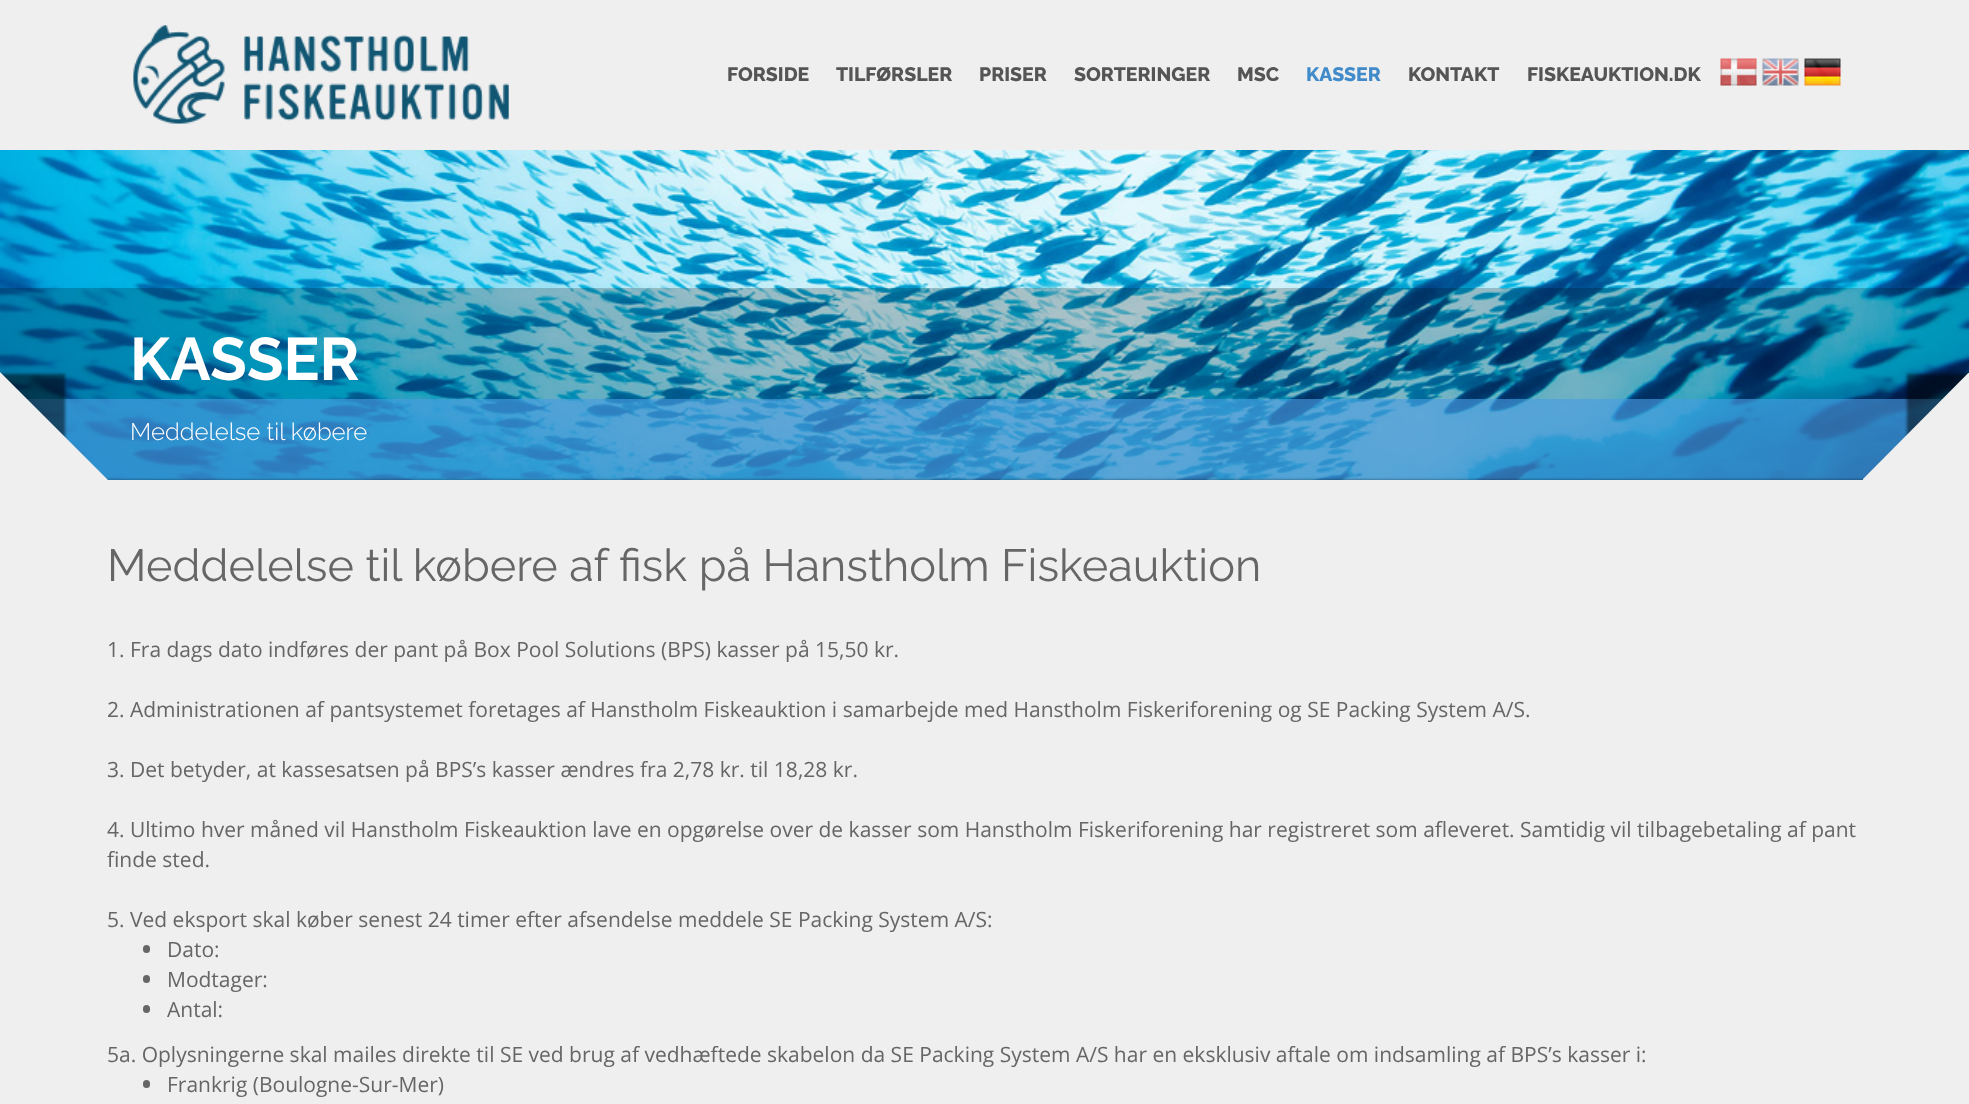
async function draw(canvas) {
  canvas.width = 1969;
  canvas.height = 1104;
  const ctx = canvas.getContext('2d');
  ctx.miterLimit = 4;
  ctx.fontKerning = 'normal';
  function label(s, x, y, font, color) {
    ctx.font = font;
    ctx.fillStyle = color;
    ctx.fillText(s, x, y);
  }
  function rect(x, y, w, h, color) {
    ctx.fillStyle = color;
    ctx.fillRect(x, y, w, h);
  }
  function roundedRect(x, y, w, h, r, color) {
    ctx.fillStyle = color;
    ctx.beginPath();
    ctx.roundRect(x, y, w, h, r);
    ctx.fill();
  }
  async function image(src, x, y, w, h) {
    const img = new Image();
    img.src = src;
    await img.decode();
    ctx.drawImage(img, x, y, w, h);
  }
  let path;

  rect(0, 0, 1969, 1104, '#efefef');
  await image('assets/img1.png', 133, 25, 376, 99);
  label('FORSIDE', 727, 81, '800 19.5px Raleway', '#555');
  label('TILFØRSLER', 836, 81, '800 19.5px Raleway', '#555');
  label('PRISER', 979, 81, '800 19.5px Raleway', '#555');
  label('SORTERINGER', 1074, 81, '800 19.5px Raleway', '#555');
  label('MSC', 1237, 81, '800 19.5px Raleway', '#555');
  label('KASSER', 1306, 81, '800 19.5px Raleway', '#428bca');
  label('KONTAKT', 1408, 81, '800 19.5px Raleway', '#555');
  label('FISKEAUKTION.DK', 1527, 81, '800 19.5px Raleway', '#555');
  await image('assets/img2.png', 1720, 58, 37, 28);
  await image('assets/img3.png', 1762, 58, 37, 28);
  await image('assets/img4.png', 1804, 58, 37, 28);
  await image('assets/img5.png', 0, 150, 1969, 330);
  rect(0, 288, 1969, 111, '#00000033');
  label('KASSER', 130, 380, 'bold 60px Raleway', '#fff');
  rect(27, 399, 1916, 81, '#428bcab3');
  label('Meddelelse til købere', 130, 440, '300 24px Raleway', '#fff');
  ctx.save();
  ctx.beginPath();
  ctx.rect(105, 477, 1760, 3);
  ctx.clip();
  ctx.fillStyle = '#00000080';
  ctx.filter = 'blur(1.5px)';
  ctx.beginPath();
  ctx.rect(0, 480, 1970, 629);
  ctx.fill();
  ctx.filter = 'none';
  ctx.restore();
  ctx.save();
  ctx.beginPath();
  ctx.rect(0, 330, 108, 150);
  ctx.clip();
  ctx.fillStyle = '#00000080';
  ctx.filter = 'blur(1.5px)';
  ctx.beginPath();
  ctx.rect(-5, 374, 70, 213);
  ctx.fill();
  ctx.filter = 'none';
  ctx.restore();
  ctx.save();
  ctx.beginPath();
  ctx.rect(0, 330, 108, 150);
  ctx.clip();
  ctx.fillStyle = '#efefef';
  path = new Path2D('M-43 329L108 480L-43 631L-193 480Z');
  ctx.fill(path);
  ctx.restore();
  ctx.save();
  ctx.beginPath();
  ctx.rect(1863, 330, 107, 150);
  ctx.clip();
  ctx.fillStyle = '#00000080';
  ctx.filter = 'blur(1.5px)';
  ctx.beginPath();
  ctx.rect(1907, 374, 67, 213);
  ctx.fill();
  ctx.filter = 'none';
  ctx.restore();
  ctx.save();
  ctx.beginPath();
  ctx.rect(1863, 330, 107, 150);
  ctx.clip();
  ctx.fillStyle = '#efefef';
  path = new Path2D('M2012 329L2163 480L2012 631L1862 480Z');
  ctx.fill(path);
  ctx.restore();
  label('Meddelelse til købere af fisk på Hanstholm Fiskeauktion', 107, 581, '45px Raleway', '#666');
  label('1. Fra dags dato indføres der pant på Box Pool Solutions (BPS) kasser på 15,50 kr.', 107, 657, '21px Open Sans', '#666');
  label('2. Administrationen af pantsystemet foretages af Hanstholm Fiskeauktion i samarbejde med Hanstholm Fiskeriforening og SE Packing System A/S.', 107, 717, '21px Open Sans', '#666');
  label('3. Det betyder, at kassesatsen på BPS’s kasser ændres fra 2,78 kr. til 18,28 kr.', 107, 777, '21px Open Sans', '#666');
  label('4. Ultimo hver måned vil Hanstholm Fiskeauktion lave en opgørelse over de kasser som Hanstholm Fiskeriforening har registreret som afleveret. Samtidig vil tilbagebetaling af pant', 107, 837, '21px Open Sans', '#666');
  label('finde sted.', 107, 867, '21px Open Sans', '#666');
  label('5. Ved eksport skal køber senest 24 timer efter afsendelse meddele SE Packing System A/S:', 107, 927, '21px Open Sans', '#666');
  roundedRect(143, 945, 7, 8, 3.5, '#666');
  label('Dato:', 167, 957, '21px Open Sans', '#666');
  roundedRect(143, 975, 7, 8, 3.5, '#666');
  label('Modtager:', 167, 987, '21px Open Sans', '#666');
  roundedRect(143, 1005, 7, 8, 3.5, '#666');
  label('Antal:', 167, 1017, '21px Open Sans', '#666');
  label('5a. Oplysningerne skal mailes direkte til SE ved brug af vedhæftede skabelon da SE Packing System A/S har en eksklusiv aftale om indsamling af BPS’s kasser i:', 107, 1062, '21px Open Sans', '#666');
  roundedRect(143, 1080, 7, 8, 3.5, '#666');
  label('Frankrig (Boulogne-Sur-Mer)', 167, 1092, '21px Open Sans', '#666');
}

draw(document.querySelector('canvas'));
